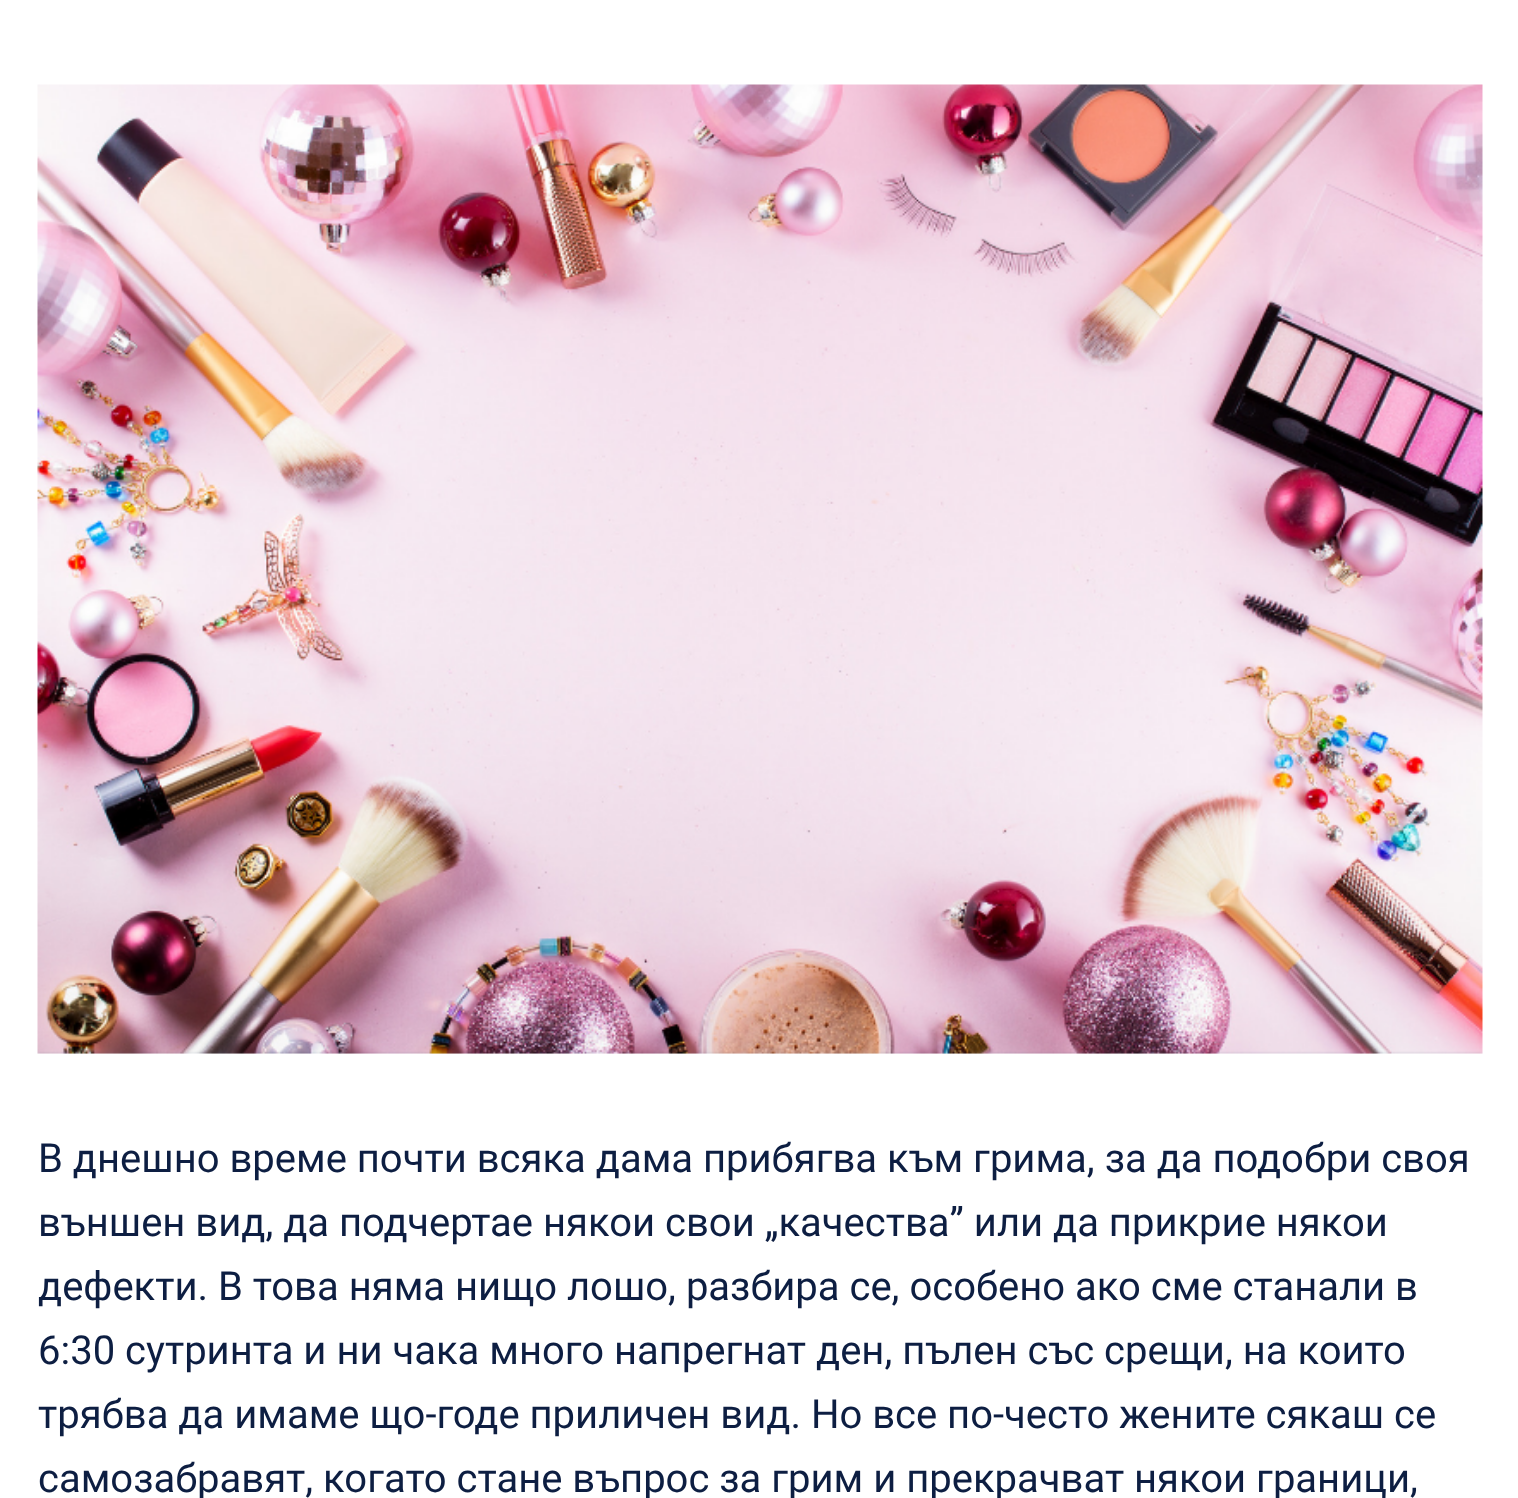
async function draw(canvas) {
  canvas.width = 1518;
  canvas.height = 1498;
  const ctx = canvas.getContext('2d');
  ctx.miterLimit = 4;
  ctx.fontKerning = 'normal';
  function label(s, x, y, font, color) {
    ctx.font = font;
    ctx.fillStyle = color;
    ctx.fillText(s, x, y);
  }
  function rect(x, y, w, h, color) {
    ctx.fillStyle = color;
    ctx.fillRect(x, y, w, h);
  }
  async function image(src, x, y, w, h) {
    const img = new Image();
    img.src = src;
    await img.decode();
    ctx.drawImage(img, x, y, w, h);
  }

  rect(0, 0, 1518, 1498, '#fff');
  await image('assets/img1.png', 37, 84, 1446, 970);
  label('В днешно време почти всяка дама прибягва към грима, за да подобри своя', 38, 1172, '40px Roboto', '#0d1e42');
  label('външен вид, да подчертае някои свои „качества” или да прикрие някои', 38, 1236, '40px Roboto', '#0d1e42');
  label('дефекти. В това няма нищо лошо, разбира се, особено ако сме станали в', 38, 1300, '40px Roboto', '#0d1e42');
  label('6:30 сутринта и ни чака много напрегнат ден, пълен със срещи, на които', 38, 1364, '40px Roboto', '#0d1e42');
  label('трябва да имаме що-годе приличен вид. Но все по-често жените сякаш се', 38, 1428, '40px Roboto', '#0d1e42');
  label('самозабравят, когато стане въпрос за грим и прекрачват някои граници,', 38, 1492, '40px Roboto', '#0d1e42');
}

draw(document.querySelector('canvas'));
